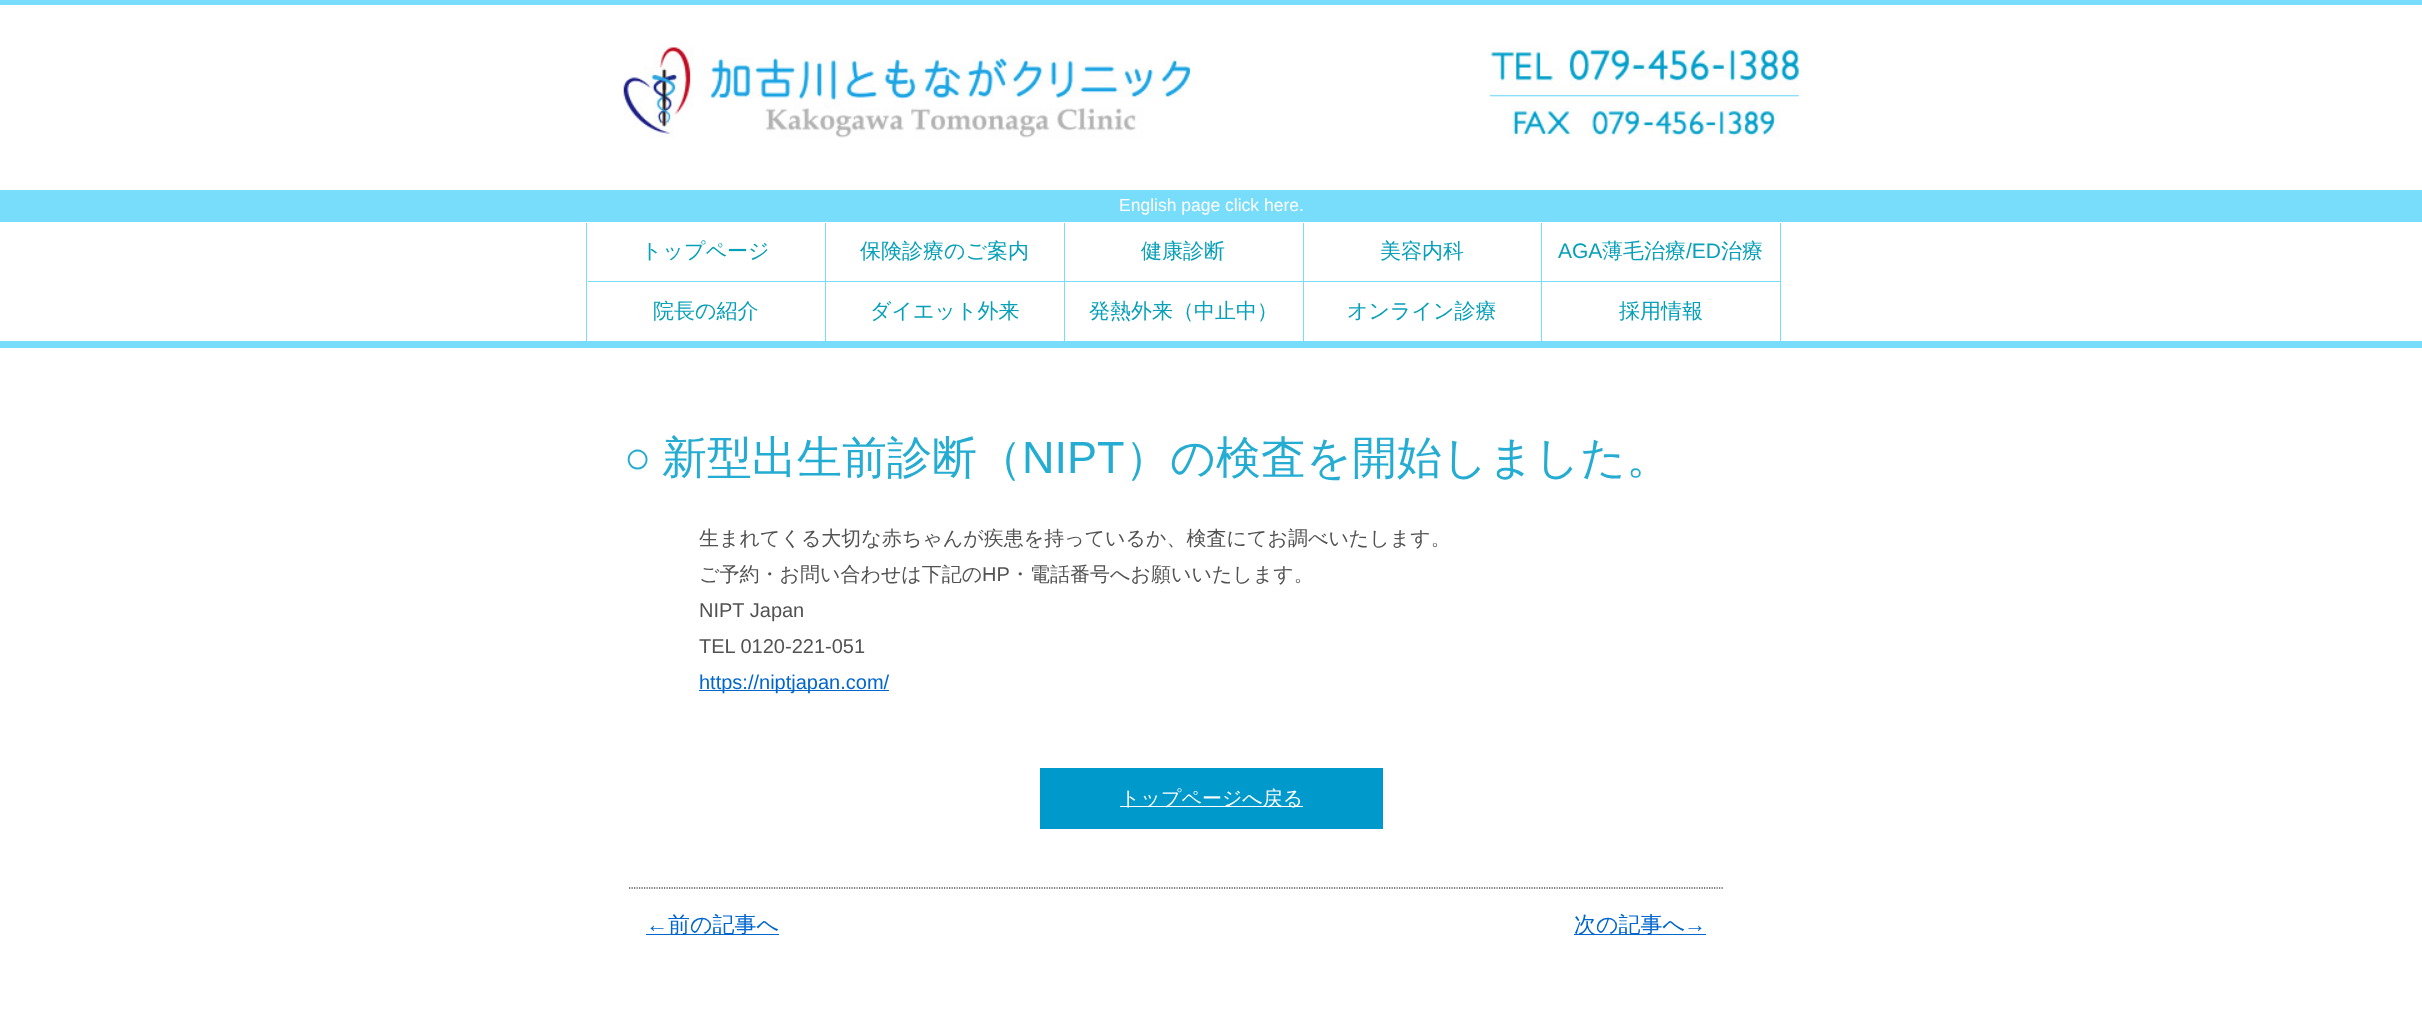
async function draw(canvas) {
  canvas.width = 2422;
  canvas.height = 1009;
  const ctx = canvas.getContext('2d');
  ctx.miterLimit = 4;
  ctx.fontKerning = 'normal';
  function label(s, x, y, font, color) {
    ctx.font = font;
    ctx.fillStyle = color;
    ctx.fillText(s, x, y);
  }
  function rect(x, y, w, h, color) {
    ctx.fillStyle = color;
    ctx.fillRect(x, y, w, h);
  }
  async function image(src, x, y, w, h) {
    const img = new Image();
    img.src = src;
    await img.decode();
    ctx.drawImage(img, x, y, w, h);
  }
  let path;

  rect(0, 0, 2422, 1009, '#fff');
  rect(0, 0, 2422, 5, '#78ddfb');
  await image('assets/img1.png', 623, 47, 567, 91);
  await image('assets/img2.png', 1490, 47, 309, 91);
  rect(0, 190, 2422, 32, '#78ddfb');
  label('English page click here.', 1119, 211, '17.5px Liberation Sans', '#fff');
  rect(0, 341, 2422, 7, '#78ddfb');
  rect(586, 223, 1, 120, '#78ddfb');
  rect(825, 223, 1, 120, '#78ddfb');
  rect(588, 281, 238, 1, '#78ddfb');
  label('トップページ', 641, 258, '500 21px WenQuanYi Zen Hei', '#08a0b8');
  rect(1064, 223, 1, 120, '#78ddfb');
  rect(826, 281, 239, 1, '#78ddfb');
  label('保険診療のご案内', 860, 258, '500 21px WenQuanYi Zen Hei', '#08a0b8');
  rect(1303, 223, 1, 120, '#78ddfb');
  rect(1065, 281, 239, 1, '#78ddfb');
  label('健康診断', 1141, 258, '500 21px WenQuanYi Zen Hei', '#08a0b8');
  rect(1541, 223, 1, 120, '#78ddfb');
  rect(1304, 281, 239, 1, '#78ddfb');
  label('美容内科', 1380, 258, '500 21px WenQuanYi Zen Hei', '#08a0b8');
  rect(1780, 223, 1, 120, '#78ddfb');
  rect(1543, 281, 238, 1, '#78ddfb');
  label('AGA', 1558, 258, '21px Liberation Sans', '#08a0b8');
  label('薄毛治療', 1602, 258, '500 21px WenQuanYi Zen Hei', '#08a0b8');
  label('/ED', 1686, 258, '21px Liberation Sans', '#08a0b8');
  label('治療', 1721, 258, '500 21px WenQuanYi Zen Hei', '#08a0b8');
  label('院長の紹介', 653, 318, '500 21px WenQuanYi Zen Hei', '#08a0b8');
  label('ダイエット外来', 870, 318, '500 21px WenQuanYi Zen Hei', '#08a0b8');
  label('発熱外来（中止中）', 1089, 318, '500 21px WenQuanYi Zen Hei', '#08a0b8');
  label('オンライン診療', 1347, 318, '500 21px WenQuanYi Zen Hei', '#08a0b8');
  label('採用情報', 1619, 318, '500 21px WenQuanYi Zen Hei', '#08a0b8');
  label('○', 624, 473, 'bold 45px Liberation Sans', '#24acd2');
  label('新型出生前診断（', 662, 473, '500 45px WenQuanYi Zen Hei', '#24acd2');
  label('NIPT', 1022, 473, '45px Liberation Sans', '#24acd2');
  label('）の検査を開始しました。', 1125, 473, '500 45px WenQuanYi Zen Hei', '#24acd2');
  label('生まれてくる大切な赤ちゃんが疾患を持っているか、検査にてお調べいたします。', 699, 545, '500 20px WenQuanYi Zen Hei', '#525252');
  label('ご予約・お問い合わせは下記の', 699, 581, '500 20px WenQuanYi Zen Hei', '#525252');
  label('HP', 982, 581, '20px Liberation Sans', '#525252');
  label('・電話番号へお願いいたします。', 1010, 581, '500 20px WenQuanYi Zen Hei', '#525252');
  label('NIPT Japan', 699, 617, '20px Liberation Sans', '#525252');
  label('TEL 0120-221-051', 699, 653, '20px Liberation Sans', '#525252');
  rect(699, 690, 190, 1, '#06c');
  label('https://niptjapan.com/', 699, 689, '20px Liberation Sans', '#06c');
  rect(1040, 768, 343, 61, '#09c');
  rect(1120, 806, 183, 1, '#fff');
  label('トップページへ戻る', 1120, 805, '500 20px WenQuanYi Zen Hei', '#fff');
  path = new Path2D('M629 888H1724');
  ctx.strokeStyle = '#000';
  ctx.lineWidth = 1.2;
  ctx.setLineDash([1.25, 1.25]);
  ctx.stroke(path);
  label('←', 646, 932, '22px Liberation Sans', '#06c');
  rect(646, 934, 133, 1, '#06c');
  label('前の記事へ', 668, 932, '500 22px WenQuanYi Zen Hei', '#06c');
  rect(1574, 934, 132, 1, '#06c');
  label('次の記事へ', 1574, 932, '500 22px WenQuanYi Zen Hei', '#06c');
  label('→', 1684, 932, '22px Liberation Sans', '#06c');
}

draw(document.querySelector('canvas'));
